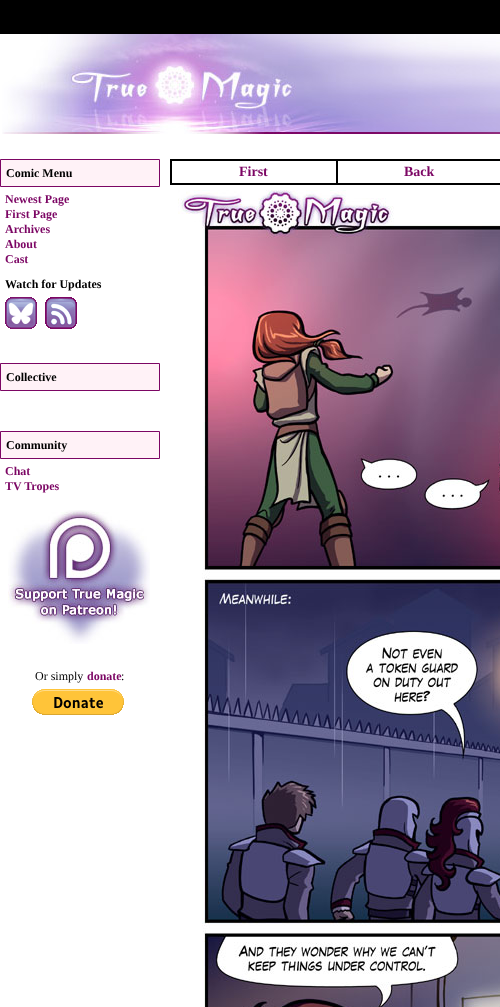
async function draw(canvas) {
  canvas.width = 500;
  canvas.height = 1007;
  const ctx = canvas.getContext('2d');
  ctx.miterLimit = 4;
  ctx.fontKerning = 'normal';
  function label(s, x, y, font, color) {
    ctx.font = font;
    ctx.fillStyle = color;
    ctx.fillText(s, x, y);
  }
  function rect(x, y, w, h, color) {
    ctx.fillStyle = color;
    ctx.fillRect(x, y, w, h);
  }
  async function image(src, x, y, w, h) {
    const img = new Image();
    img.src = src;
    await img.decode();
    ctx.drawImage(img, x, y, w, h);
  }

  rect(0, 0, 500, 1007, '#fff');
  rect(0, 0, 500, 34, '#000');
  await image('assets/img1.png', 2, 34, 498, 100);
  ctx.fillStyle = '#fff2f7';
  ctx.beginPath();
  ctx.rect(0.5, 159.5, 159, 27);
  ctx.fill();
  ctx.strokeStyle = '#7c0664';
  ctx.stroke();
  label('Comic Menu', 6, 177, 'bold 12px Liberation Serif', '#000');
  label('Newest Page', 5, 203, 'bold 12px Liberation Serif', '#7c0664');
  label('First Page', 5, 218, 'bold 12px Liberation Serif', '#7c0664');
  label('Archives', 5, 233, 'bold 12px Liberation Serif', '#7c0664');
  label('About', 5, 248, 'bold 12px Liberation Serif', '#7c0664');
  label('Cast', 5, 263, 'bold 12px Liberation Serif', '#7c0664');
  label('Watch for Updates', 5, 288, 'bold 12px Liberation Serif', '#000');
  await image('assets/img2.png', 5, 297, 32, 32);
  await image('assets/img3.png', 45, 297, 32, 32);
  ctx.fillStyle = '#fff2f7';
  ctx.beginPath();
  ctx.rect(0.5, 363.5, 159, 27);
  ctx.fill();
  ctx.stroke();
  label('Collective', 6, 381, 'bold 12px Liberation Serif', '#000');
  ctx.fillStyle = '#fff2f7';
  ctx.beginPath();
  ctx.rect(0.5, 431.5, 159, 27);
  ctx.fill();
  ctx.stroke();
  label('Community', 6, 449, 'bold 12px Liberation Serif', '#000');
  label('Chat', 5, 475, 'bold 12px Liberation Serif', '#7c0664');
  label('TV Tropes', 5, 490, 'bold 12px Liberation Serif', '#7c0664');
  await image('assets/img4.png', 8, 510, 142, 134);
  label('Or simply', 35, 680, '12px Liberation Serif', '#000');
  label('donate', 87, 680, 'bold 12px Liberation Serif', '#7c0664');
  label(':', 121, 680, '12px Liberation Serif', '#000');
  await image('assets/img5.png', 32, 689, 92, 26);
  ctx.strokeStyle = '#000';
  ctx.strokeRect(170.5, 159.5, 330, 25);
  ctx.strokeRect(171.5, 160.5, 165, 23);
  label('First', 239, 176, 'bold 14px Liberation Serif', '#7c0664');
  ctx.strokeRect(337.5, 160.5, 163, 23);
  label('Back', 404, 176, 'bold 14px Liberation Serif', '#7c0664');
  await image('assets/img6.png', 178, 190, 322, 817);
}

draw(document.querySelector('canvas'));
